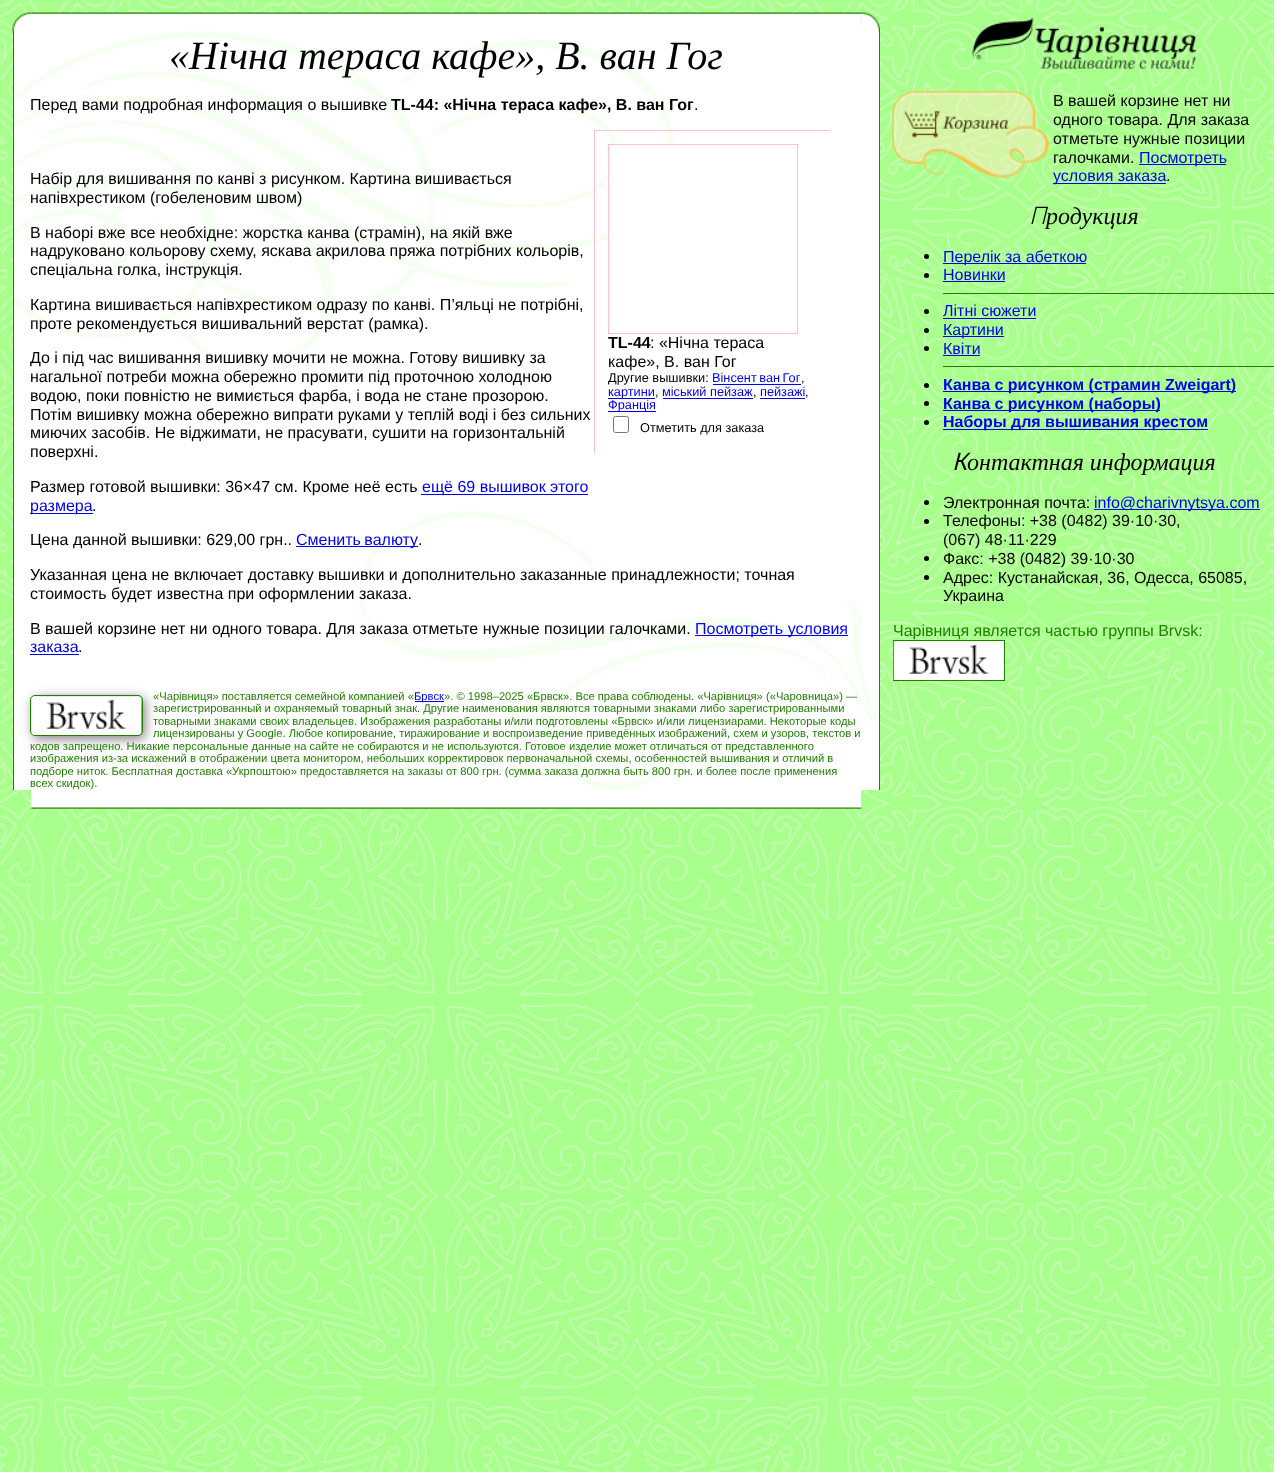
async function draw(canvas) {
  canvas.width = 1274;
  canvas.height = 1472;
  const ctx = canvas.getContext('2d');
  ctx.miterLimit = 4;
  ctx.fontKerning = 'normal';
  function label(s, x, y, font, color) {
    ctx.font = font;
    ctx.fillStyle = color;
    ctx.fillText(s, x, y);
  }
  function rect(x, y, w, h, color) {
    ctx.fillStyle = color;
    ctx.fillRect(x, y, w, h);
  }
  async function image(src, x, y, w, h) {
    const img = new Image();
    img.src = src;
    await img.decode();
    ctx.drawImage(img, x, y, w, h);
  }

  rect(0, 0, 1274, 1472, '#fff');
  await image('assets/img1.png', 0, 0, 1274, 1472);
  rect(14, 31, 865, 759, '#fff');
  await image('assets/img5.png', 14, 31, 660, 335);
  rect(13, 31, 1, 759, '#207f00');
  await image('assets/img2.png', 12, 12, 20, 20);
  rect(31, 13, 830, 18, '#fff');
  await image('assets/img3.png', 31, 12, 831, 2);
  rect(879, 31, 1, 759, '#207f00');
  await image('assets/img4.png', 861, 12, 19, 20);
  await image('assets/img6.png', 359, 511, 520, 279);
  label('«Нічна тераса кафе», В. ван Гог', 169, 69, 'italic 40px Liberation Serif', '#000');
  label('Перед вами подробная информация о вышивке', 30, 110, '16px Liberation Sans', '#000');
  label('TL-44: «Нічна тераса кафе», В. ван Гог', 391, 110, 'bold 16px Liberation Sans', '#000');
  label('.', 694, 110, '16px Liberation Sans', '#000');
  label('Набір для вишивання по канві з рисунком. Картина вишивається', 30, 184, '16px Liberation Sans', '#000');
  label('напівхрестиком (гобеленовим швом)', 30, 203, '16px Liberation Sans', '#000');
  label('В наборі вже все необхідне: жорстка канва (страмін), на якій вже', 30, 238, '16px Liberation Sans', '#000');
  label('надруковано кольорову схему, яскава акрилова пряжа потрібних кольорів,', 30, 256, '16px Liberation Sans', '#000');
  label('спеціальна голка, інструкція.', 30, 275, '16px Liberation Sans', '#000');
  label('Картина вишивається напівхрестиком одразу по канві. П’яльці не потрібні,', 30, 310, '16px Liberation Sans', '#000');
  label('проте рекомендується вишивальний верстат (рамка).', 30, 329, '16px Liberation Sans', '#000');
  label('До і під час вишивання вишивку мочити не можна. Готову вишивку за', 30, 363, '16px Liberation Sans', '#000');
  label('нагальної потреби можна обережно промити під проточною холодною', 30, 382, '16px Liberation Sans', '#000');
  label('водою, поки повністю не вимиється фарба, і вода не стане прозорою.', 30, 401, '16px Liberation Sans', '#000');
  label('Потім вишивку можна обережно випрати руками у теплій воді і без сильних', 30, 420, '16px Liberation Sans', '#000');
  label('миючих засобів. Не віджимати, не прасувати, сушити на горизонтальній', 30, 438, '16px Liberation Sans', '#000');
  label('поверхні.', 30, 457, '16px Liberation Sans', '#000');
  rect(594, 130, 236, 1, '#ffbfcf');
  rect(594, 130, 1, 323, '#ffbfcf');
  rect(609, 145, 65, 94, '#fff');
  ctx.strokeStyle = '#ffbfcf';
  ctx.strokeRect(608.5, 144.5, 189, 189);
  label('TL-44', 608, 348, 'bold 16px Liberation Sans', '#000');
  label(': «Нічна тераса', 650, 348, '16px Liberation Sans', '#000');
  label('кафе», В. ван Гог', 608, 367, '16px Liberation Sans', '#000');
  label('Другие вышивки:', 608, 382, '12.75px Liberation Sans', '#000');
  ctx.wordSpacing = '-1px';
  label('Вінсент ван Гог', 712, 382, '12.75px Liberation Sans', '#00e');
  rect(713, 384, 88, 1, '#00e');
  ctx.wordSpacing = '0px';
  label(',', 801, 382, '12.75px Liberation Sans', '#000');
  rect(608, 398, 47, 1, '#00e');
  label('картини', 608, 396, '12.75px Liberation Sans', '#00e');
  label(',', 655, 396, '12.75px Liberation Sans', '#000');
  label('міський пейзаж', 662, 396, '12.75px Liberation Sans', '#00e');
  rect(663, 398, 90, 1, '#00e');
  label(',', 753, 396, '12.75px Liberation Sans', '#000');
  label('пейзажі', 760, 396, '12.75px Liberation Sans', '#00e');
  rect(760, 398, 45, 1, '#00e');
  label(',', 805, 396, '12.75px Liberation Sans', '#000');
  rect(608, 411, 48, 1, '#00e');
  label('Франція', 608, 409, '12.75px Liberation Sans', '#00e');
  ctx.beginPath();
  ctx.roundRect(613.5, 416.5, 15, 16, 2);
  ctx.strokeStyle = '#767676';
  ctx.stroke();
  label('Отметить для заказа', 640, 432, '12.75px Liberation Sans', '#000');
  label('Размер готовой вышивки: 36×47 см. Кроме неё есть', 30, 492, '16px Liberation Sans', '#000');
  rect(421, 494, 167, 1, '#00e');
  label('ещё 69 вышивок этого', 422, 492, '16px Liberation Sans', '#00e');
  rect(30, 513, 63, 1, '#00e');
  label('размера', 30, 511, '16px Liberation Sans', '#00e');
  label('.', 92, 511, '16px Liberation Sans', '#000');
  label('Цена данной вышивки: 629,00 грн..', 30, 545, '16px Liberation Sans', '#000');
  rect(296, 546, 122, 1, '#00e');
  ctx.wordSpacing = '-1px';
  label('Сменить валюту', 296, 545, '16px Liberation Sans', '#00e');
  ctx.wordSpacing = '0px';
  label('.', 418, 545, '16px Liberation Sans', '#000');
  label('Указанная цена не включает доставку вышивки и дополнительно заказанные принадлежности; точная', 30, 580, '16px Liberation Sans', '#000');
  label('стоимость будет известна при оформлении заказа.', 30, 599, '16px Liberation Sans', '#000');
  label('В вашей корзине нет ни одного товара. Для заказа отметьте нужные позиции галочками.', 30, 634, '16px Liberation Sans', '#000');
  rect(695, 635, 153, 1, '#00e');
  label('Посмотреть условия', 695, 634, '16px Liberation Sans', '#00e');
  label('заказа', 30, 652, '16px Liberation Sans', '#00e');
  rect(30, 654, 49, 1, '#00e');
  label('.', 78, 652, '16px Liberation Sans', '#000');
  ctx.fillStyle = '#808080';
  ctx.filter = 'blur(6px)';
  ctx.beginPath();
  ctx.roundRect(33, 698, 112, 41, 5);
  ctx.fill();
  ctx.filter = 'none';
  ctx.beginPath();
  ctx.roundRect(30.5, 695.5, 112, 40, 4.5);
  ctx.strokeStyle = '#207f00';
  ctx.stroke();
  await image('assets/img7.png', 31, 696, 110, 39);
  label('«Чарівниця» поставляется семейной компанией «', 153, 700, '11.2px Liberation Sans', '#207f00');
  rect(415, 701, 29, 1, '#00e');
  label('Брвск', 414, 700, '11.2px Liberation Sans', '#00e');
  label('». © 1998–2025 «Брвск». Все права соблюдены. «Чарівниця» («Чаровница») —', 444, 700, '11.2px Liberation Sans', '#207f00');
  label('зарегистрированный и охраняемый товарный знак. Другие наименования являются товарными знаками либо зарегистрированными', 153, 712, '11.2px Liberation Sans', '#207f00');
  label('товарными знаками своих владельцев. Изображения разработаны и/или подготовлены «Брвск» и/или лицензиарами. Некоторые коды', 153, 725, '11.2px Liberation Sans', '#207f00');
  label('лицензированы у Google. Любое копирование, тиражирование и воспроизведение приведённых изображений, схем и узоров, текстов и', 153, 737, '11.2px Liberation Sans', '#207f00');
  label('кодов запрещено. Никакие персональные данные на сайте не собираются и не используются. Готовое изделие может отличаться от представленного', 30, 750, '11.2px Liberation Sans', '#207f00');
  label('изображения из-за искажений в отображении цвета монитором, небольших корректировок первоначальной схемы, особенностей вышивания и отличий в', 30, 762, '11.2px Liberation Sans', '#207f00');
  label('подборе ниток. Бесплатная доставка «Укрпоштою» предоставляется на заказы от 800 грн. (сумма заказа должна быть 800 грн. и более после применения', 30, 775, '11.2px Liberation Sans', '#207f00');
  label('всех скидок).', 30, 787, '11.2px Liberation Sans', '#207f00');
  rect(31, 790, 830, 19, '#fff');
  await image('assets/img8.png', 31, 807, 831, 2);
  await image('assets/img9.png', 972, 17, 225, 52);
  await image('assets/img10.png', 892, 91, 157, 87);
  label('В вашей корзине нет ни', 1053, 106, '16px Liberation Sans', '#000');
  label('одного товара. Для заказа', 1053, 125, '16px Liberation Sans', '#000');
  label('отметьте нужные позиции', 1053, 144, '16px Liberation Sans', '#000');
  label('галочками.', 1053, 163, '16px Liberation Sans', '#000');
  rect(1139, 164, 87, 1, '#00e');
  label('Посмотреть', 1139, 163, '16px Liberation Sans', '#00e');
  rect(1053, 183, 113, 1, '#00e');
  label('условия заказа', 1053, 181, '16px Liberation Sans', '#00e');
  label('.', 1166, 181, '16px Liberation Sans', '#000');
  label('П', 1029, 224, 'italic 300 24px Noto Sans', '#000');
  label('родукция', 1046, 224, 'italic 24px Liberation Serif', '#000');
  ctx.beginPath();
  ctx.arc(926.5, 256.5, 2.5, 0, 2 * Math.PI);
  ctx.fill();
  rect(943, 263, 143, 1, '#00e');
  label('Перелік за абеткою', 943, 262, '16px Liberation Sans', '#00e');
  ctx.fillStyle = '#000';
  ctx.beginPath();
  ctx.arc(926.5, 275.5, 2.5, 0, 2 * Math.PI);
  ctx.fill();
  label('Новинки', 943, 280, '16px Liberation Sans', '#00e');
  rect(943, 281, 62, 1, '#00e');
  rect(943, 293, 331, 1, '#207f00');
  ctx.fillStyle = '#000';
  ctx.beginPath();
  ctx.arc(926.5, 311.5, 2.5, 0, 2 * Math.PI);
  ctx.fill();
  label('Літні сюжети', 943, 316, '16px Liberation Sans', '#00e');
  rect(943, 318, 93, 1, '#00e');
  ctx.fillStyle = '#000';
  ctx.beginPath();
  ctx.arc(926.5, 330.5, 2.5, 0, 2 * Math.PI);
  ctx.fill();
  rect(943, 336, 61, 1, '#00e');
  label('Картини', 943, 335, '16px Liberation Sans', '#00e');
  ctx.fillStyle = '#000';
  ctx.beginPath();
  ctx.arc(926.5, 348.5, 2.5, 0, 2 * Math.PI);
  ctx.fill();
  label('Квіти', 943, 354, '16px Liberation Sans', '#00e');
  rect(943, 355, 37, 1, '#00e');
  rect(943, 366, 331, 1, '#207f00');
  ctx.fillStyle = '#000';
  ctx.beginPath();
  ctx.arc(926.5, 385.5, 2.5, 0, 2 * Math.PI);
  ctx.fill();
  rect(943, 391, 293, 1, '#00e');
  label('Канва с рисунком (страмин Zweigart)', 943, 390, 'bold 16px Liberation Sans', '#00e');
  ctx.fillStyle = '#000';
  ctx.beginPath();
  ctx.arc(926.5, 403.5, 2.5, 0, 2 * Math.PI);
  ctx.fill();
  rect(943, 410, 217, 1, '#00e');
  label('Канва с рисунком (наборы)', 943, 409, 'bold 16px Liberation Sans', '#00e');
  ctx.fillStyle = '#000';
  ctx.beginPath();
  ctx.arc(926.5, 422.5, 2.5, 0, 2 * Math.PI);
  ctx.fill();
  rect(943, 429, 265, 1, '#00e');
  label('Наборы для вышивания крестом', 943, 427, 'bold 16px Liberation Sans', '#00e');
  label('К', 952, 470, 'italic 24px Noto Sans', '#000');
  label('онтактная информация', 967, 470, 'italic 24px Liberation Serif', '#000');
  ctx.beginPath();
  ctx.arc(926.5, 502.5, 2.5, 0, 2 * Math.PI);
  ctx.fill();
  label('Электронная почта:', 943, 508, '16px Liberation Sans', '#000');
  rect(1094, 509, 166, 1, '#00e');
  label('info@charivnytsya.com', 1094, 508, '16px Liberation Sans', '#00e');
  ctx.fillStyle = '#000';
  ctx.beginPath();
  ctx.arc(926.5, 521.5, 2.5, 0, 2 * Math.PI);
  ctx.fill();
  label('Телефоны: +38 (0482) 39·10·30,', 943, 526, '16px Liberation Sans', '#000');
  label('(067) 48·11·229', 943, 545, '16px Liberation Sans', '#000');
  ctx.beginPath();
  ctx.arc(926.5, 558.5, 2.5, 0, 2 * Math.PI);
  ctx.fill();
  label('Факс: +38 (0482) 39·10·30', 943, 564, '16px Liberation Sans', '#000');
  ctx.beginPath();
  ctx.arc(926.5, 577.5, 2.5, 0, 2 * Math.PI);
  ctx.fill();
  label('Адрес: Кустанайская, 36, Одесса, 65085,', 943, 583, '16px Liberation Sans', '#000');
  label('Украина', 943, 601, '16px Liberation Sans', '#000');
  label('Чарівниця является частью группы Brvsk:', 893, 636, '16px Liberation Sans', '#207f00');
  ctx.strokeRect(893.5, 640.5, 111, 40);
  await image('assets/img11.png', 893, 641, 111, 39);
}

draw(document.querySelector('canvas'));
